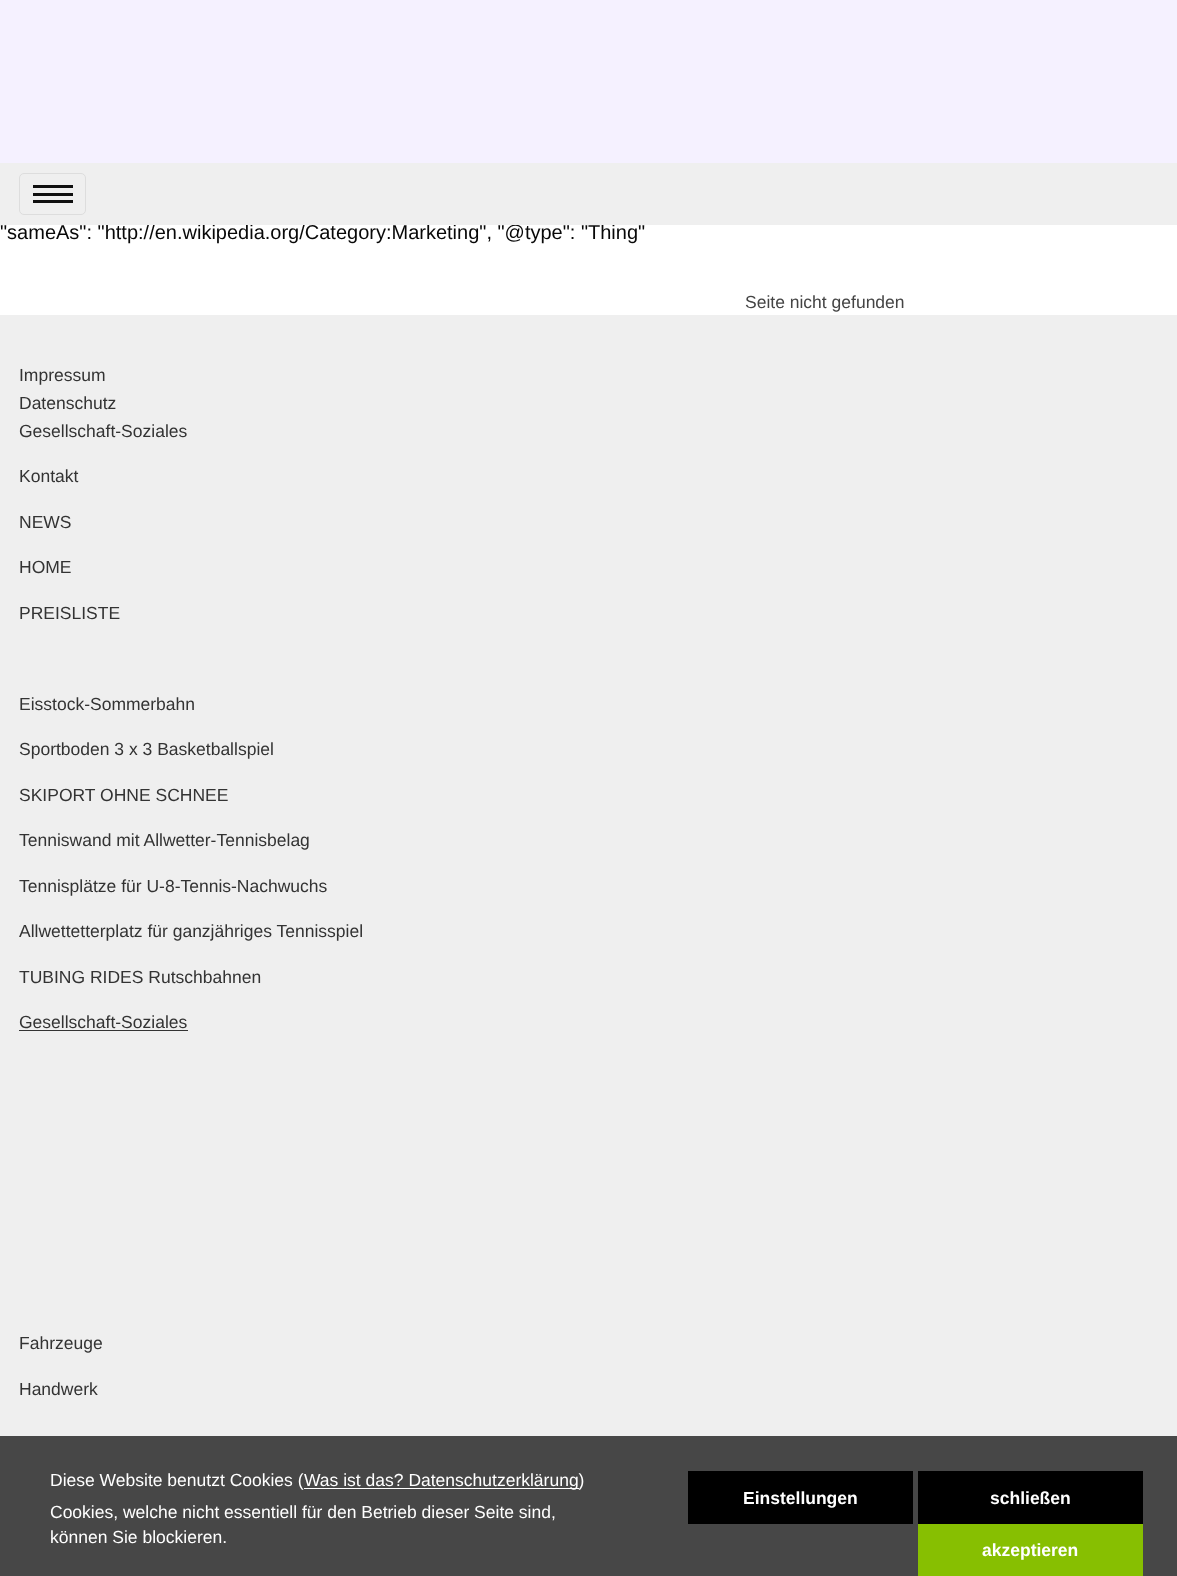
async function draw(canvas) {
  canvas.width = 1177;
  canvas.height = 1576;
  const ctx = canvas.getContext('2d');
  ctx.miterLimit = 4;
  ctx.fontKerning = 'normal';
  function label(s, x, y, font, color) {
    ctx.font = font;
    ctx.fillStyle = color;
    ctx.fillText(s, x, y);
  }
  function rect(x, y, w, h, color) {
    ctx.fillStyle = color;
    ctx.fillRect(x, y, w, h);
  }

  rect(0, 0, 1177, 1576, '#fff');
  rect(0, 0, 1177, 163, '#f5f1ff');
  label('"sameAs": "http://en.wikipedia.org/Category:Marketing", "@type": "Thing"', 0, 239, '20px Liberation Sans', '#080808');
  rect(0, 163, 1177, 62, '#efefef');
  ctx.beginPath();
  ctx.roundRect(19.5, 173.5, 66, 41, 4.5);
  ctx.strokeStyle = '#ddd';
  ctx.stroke();
  rect(33, 185, 40, 3, '#0f0f0f');
  rect(33, 193, 40, 3, '#0f0f0f');
  rect(33, 200, 40, 3, '#0f0f0f');
  label('Seite nicht gefunden', 745, 308, '17.5px Liberation Sans', '#444');
  rect(0, 315, 1177, 1261, '#efefef');
  label('Impressum', 19, 381, '17.5px Liberation Sans', '#333');
  label('Datenschutz', 19, 409, '17.5px Liberation Sans', '#333');
  label('Gesellschaft-Soziales', 19, 437, '17.5px Liberation Sans', '#333');
  label('Kontakt', 19, 482, '17.5px Liberation Sans', '#333');
  label('NEWS', 19, 528, '17.5px Liberation Sans', '#333');
  label('HOME', 19, 573, '17.5px Liberation Sans', '#333');
  label('PREISLISTE', 19, 619, '17.5px Liberation Sans', '#333');
  label('Eisstock-Sommerbahn', 19, 710, '17.5px Liberation Sans', '#333');
  label('Sportboden 3 x 3 Basketballspiel', 19, 755, '17.5px Liberation Sans', '#333');
  label('SKIPORT OHNE SCHNEE', 19, 801, '17.5px Liberation Sans', '#333');
  label('Tenniswand mit Allwetter-Tennisbelag', 19, 846, '17.5px Liberation Sans', '#333');
  label('Tennisplätze für U-8-Tennis-Nachwuchs', 19, 892, '17.5px Liberation Sans', '#333');
  label('Allwettetterplatz für ganzjähriges Tennisspiel', 19, 937, '17.5px Liberation Sans', '#333');
  label('TUBING RIDES Rutschbahnen', 19, 983, '17.5px Liberation Sans', '#333');
  label('Gesellschaft-Soziales', 19, 1028, '17.5px Liberation Sans', '#333');
  rect(19, 1030, 169, 1, '#333');
  label('Fahrzeuge', 19, 1349, '17.5px Liberation Sans', '#333');
  label('Handwerk', 19, 1395, '17.5px Liberation Sans', '#333');
  rect(0, 1436, 1177, 140, '#000000b3');
  label('Diese Website benutzt Cookies (', 50, 1486, '17.5px Liberation Sans', '#fff');
  rect(304, 1488, 275, 1, '#fff');
  label('Was ist das? Datenschutzerklärung)', 304, 1486, '17.5px Liberation Sans', '#fff');
  label('Cookies, welche nicht essentiell für den Betrieb dieser Seite sind,', 50, 1518, '17.5px Liberation Sans', '#fff');
  label('können Sie blockieren.', 50, 1543, '17.5px Liberation Sans', '#fff');
  rect(688, 1471, 225, 53, '#000');
  label('Einstellungen', 743, 1504, 'bold 17.5px Liberation Sans', '#fff');
  rect(918, 1471, 225, 53, '#000');
  label('schließen', 990, 1504, 'bold 17.5px Liberation Sans', '#fff');
  rect(918, 1524, 225, 52, '#87bf01');
  label('akzeptieren', 982, 1556, 'bold 17.5px Liberation Sans', '#fff');
}

draw(document.querySelector('canvas'));
